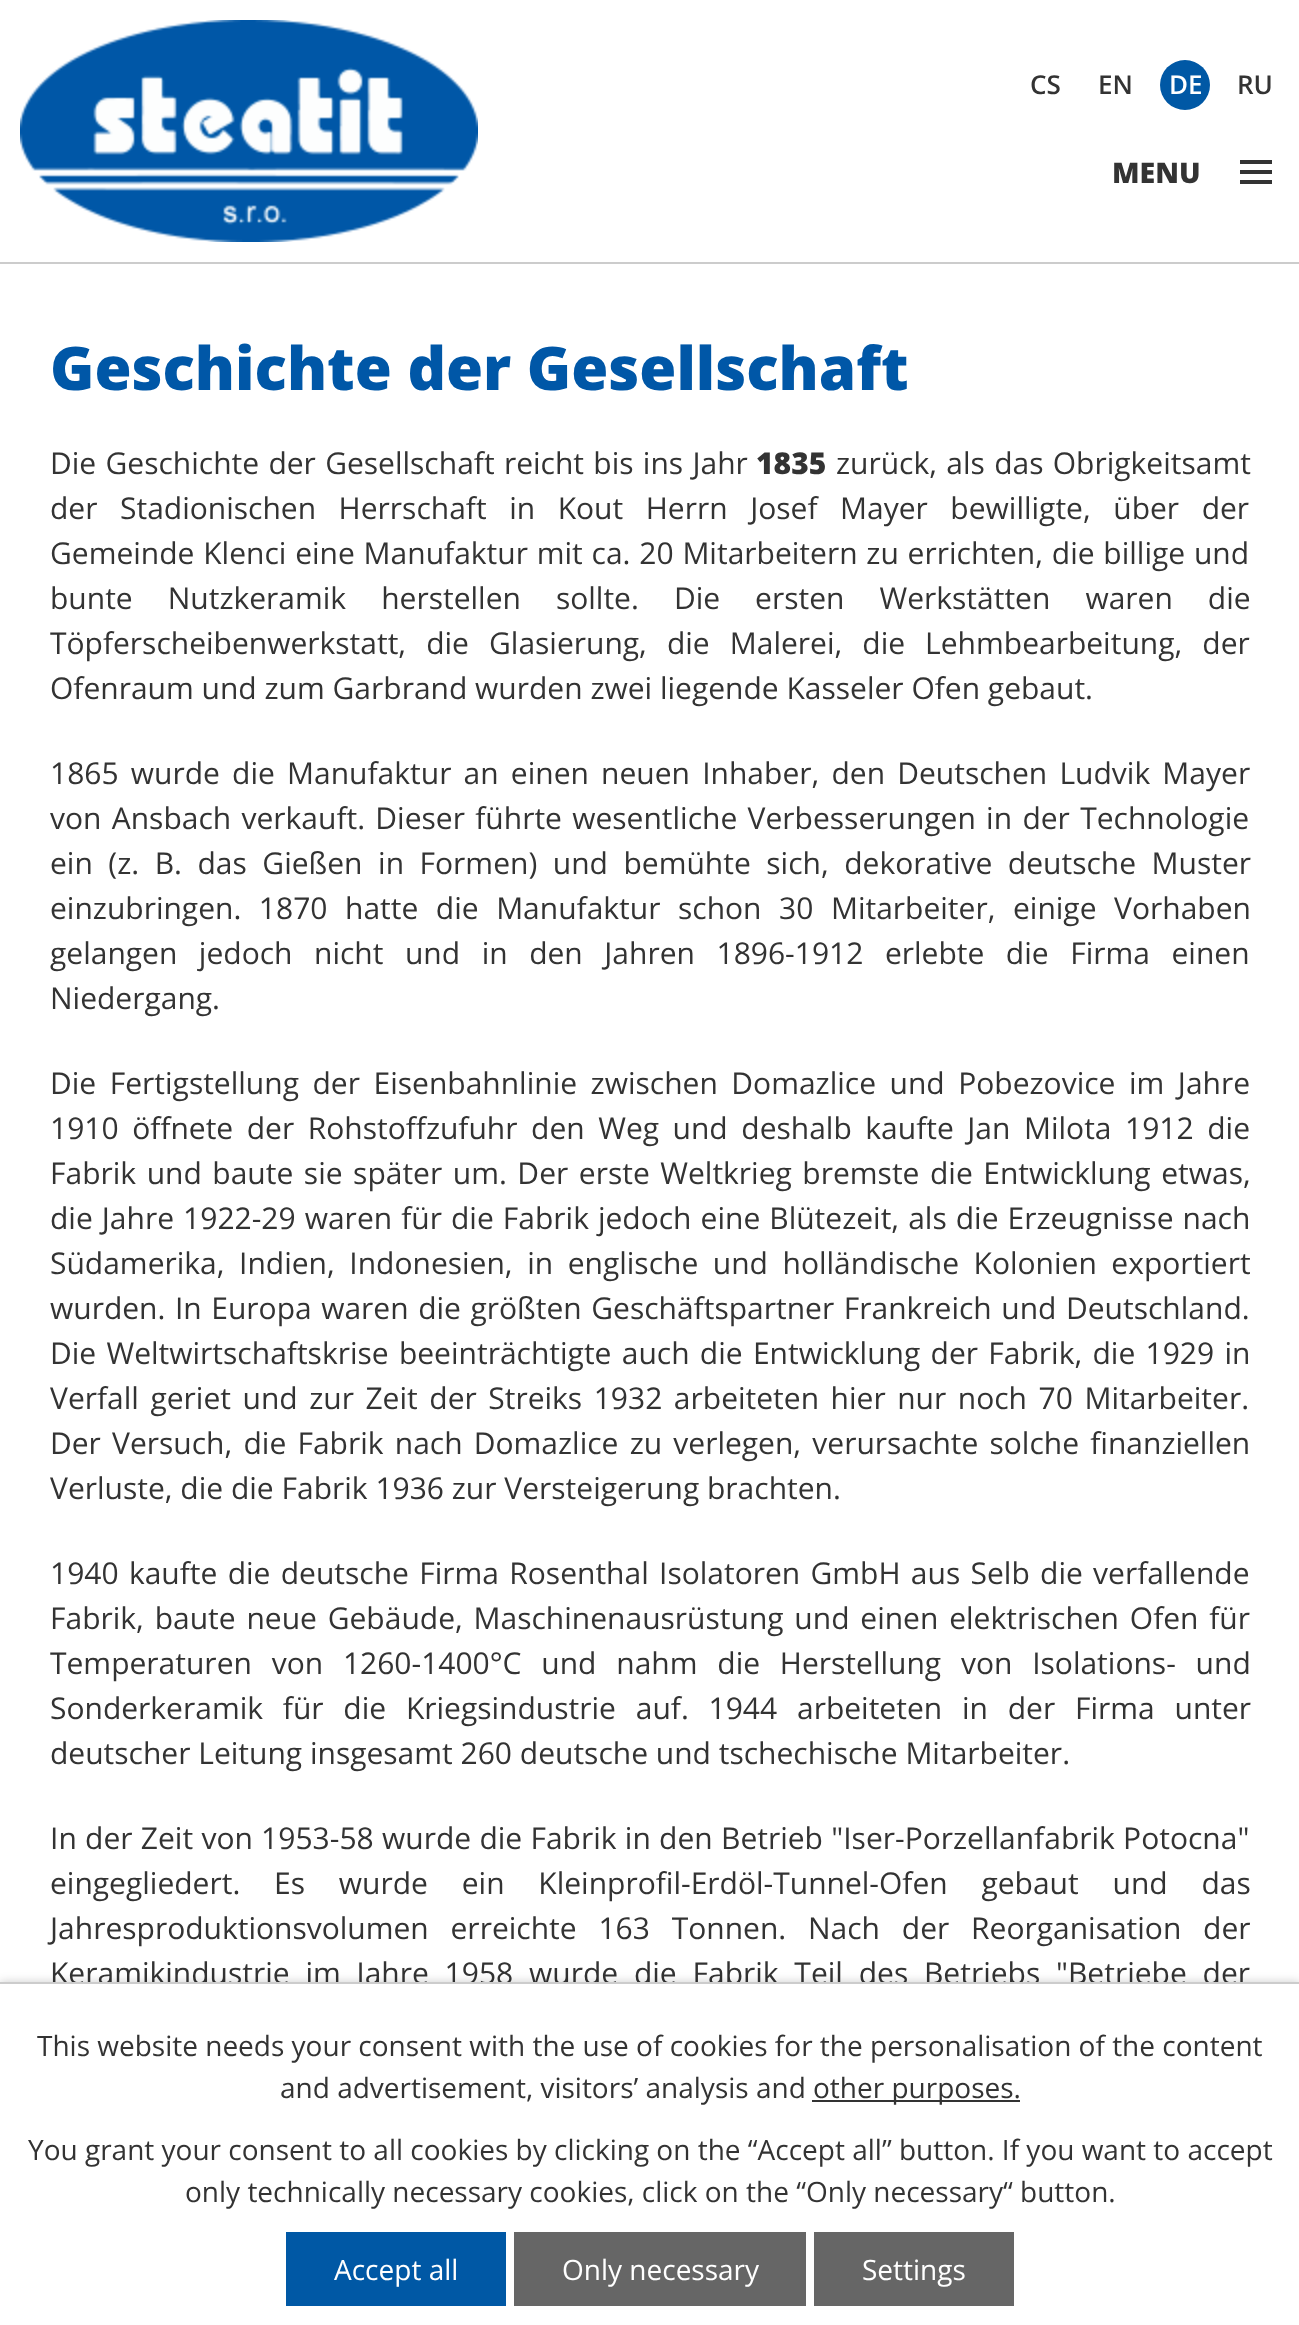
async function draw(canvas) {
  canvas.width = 1299;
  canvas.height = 2325;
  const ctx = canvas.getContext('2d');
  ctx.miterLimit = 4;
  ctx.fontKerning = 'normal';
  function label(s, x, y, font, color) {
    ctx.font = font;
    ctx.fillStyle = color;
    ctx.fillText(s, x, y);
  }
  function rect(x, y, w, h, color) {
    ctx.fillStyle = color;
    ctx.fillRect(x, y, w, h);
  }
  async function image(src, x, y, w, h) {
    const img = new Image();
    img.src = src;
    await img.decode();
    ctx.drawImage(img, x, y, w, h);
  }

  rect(0, 0, 1299, 2325, '#fff');
  rect(0, 262, 1299, 2, '#ccc');
  await image('assets/img1.png', 20, 20, 458, 222);
  label('CS', 1030, 94, '600 26px Open Sans', '#333');
  label('EN', 1098, 94, '600 26px Open Sans', '#333');
  ctx.fillStyle = '#0058a5';
  ctx.beginPath();
  ctx.arc(1185, 85, 25, 0, 2 * Math.PI);
  ctx.fill();
  label('DE', 1169, 94, '600 26px Open Sans', '#fff');
  label('RU', 1237, 94, '600 26px Open Sans', '#333');
  label('MENU', 1112, 183, '800 28.5px Open Sans', '#333');
  await image('assets/img2.png', 1240, 160, 32, 24);
  label('Geschichte der Gesellschaft', 50, 390, '800 60px Open Sans', '#0057a7');
  ctx.wordSpacing = '1.5px';
  label('Die Geschichte der Gesellschaft reicht bis ins Jahr', 50, 474, '30px Open Sans', '#333');
  ctx.wordSpacing = '0px';
  label('1835', 756, 474, '800 30px Open Sans', '#333');
  ctx.wordSpacing = '1.5px';
  label('zurück, als das Obrigkeitsamt', 836, 474, '30px Open Sans', '#333');
  ctx.wordSpacing = '14.75px';
  label('der Stadionischen Herrschaft in Kout Herrn Josef Mayer bewilligte, über der', 50, 519, '30px Open Sans', '#333');
  ctx.wordSpacing = '1px';
  label('Gemeinde Klenci eine Manufaktur mit ca. 20 Mitarbeitern zu errichten, die billige und', 50, 564, '30px Open Sans', '#333');
  ctx.wordSpacing = '27.25px';
  label('bunte Nutzkeramik herstellen sollte. Die ersten Werkstätten waren die', 50, 609, '30px Open Sans', '#333');
  ctx.wordSpacing = '12.25px';
  label('Töpferscheibenwerkstatt, die Glasierung, die Malerei, die Lehmbearbeitung, der', 50, 654, '30px Open Sans', '#333');
  ctx.wordSpacing = '0px';
  label('Ofenraum und zum Garbrand wurden zwei liegende Kasseler Ofen gebaut.', 50, 699, '30px Open Sans', '#333');
  ctx.wordSpacing = '4.4px';
  label('1865 wurde die Manufaktur an einen neuen Inhaber, den Deutschen Ludvik Mayer', 50, 784, '30px Open Sans', '#333');
  ctx.wordSpacing = '2.5px';
  label('von Ansbach verkauft. Dieser führte wesentliche Verbesserungen in der Technologie', 50, 829, '30px Open Sans', '#333');
  ctx.wordSpacing = '7.75px';
  label('ein (z. B. das Gießen in Formen) und bemühte sich, dekorative deutsche Muster', 50, 874, '30px Open Sans', '#333');
  ctx.wordSpacing = '9.75px';
  label('einzubringen. 1870 hatte die Manufaktur schon 30 Mitarbeiter, einige Vorhaben', 50, 919, '30px Open Sans', '#333');
  ctx.wordSpacing = '13.75px';
  label('gelangen jedoch nicht und in den Jahren 1896-1912 erlebte die Firma einen', 50, 964, '30px Open Sans', '#333');
  ctx.wordSpacing = '0px';
  label('Niedergang.', 50, 1009, '30px Open Sans', '#333');
  ctx.wordSpacing = '5.75px';
  label('Die Fertigstellung der Eisenbahnlinie zwischen Domazlice und Pobezovice im Jahre', 50, 1094, '30px Open Sans', '#333');
  label('1910 öffnete der Rohstoffzufuhr den Weg und deshalb kaufte Jan Milota 1912 die', 50, 1139, '30px Open Sans', '#333');
  ctx.wordSpacing = '2.75px';
  label('Fabrik und baute sie später um. Der erste Weltkrieg bremste die Entwicklung etwas,', 50, 1184, '30px Open Sans', '#333');
  ctx.wordSpacing = '1.25px';
  label('die Jahre 1922-29 waren für die Fabrik jedoch eine Blütezeit, als die Erzeugnisse nach', 50, 1229, '30px Open Sans', '#333');
  ctx.wordSpacing = '6.75px';
  label('Südamerika, Indien, Indonesien, in englische und holländische Kolonien exportiert', 50, 1274, '30px Open Sans', '#333');
  ctx.wordSpacing = '1.75px';
  label('wurden. In Europa waren die größten Geschäftspartner Frankreich und Deutschland.', 50, 1319, '30px Open Sans', '#333');
  ctx.wordSpacing = '2.5px';
  label('Die Weltwirtschaftskrise beeinträchtigte auch die Entwicklung der Fabrik, die 1929 in', 50, 1364, '30px Open Sans', '#333');
  ctx.wordSpacing = '3.75px';
  label('Verfall geriet und zur Zeit der Streiks 1932 arbeiteten hier nur noch 70 Mitarbeiter.', 50, 1409, '30px Open Sans', '#333');
  ctx.wordSpacing = '3.4px';
  label('Der Versuch, die Fabrik nach Domazlice zu verlegen, verursachte solche finanziellen', 50, 1454, '30px Open Sans', '#333');
  ctx.wordSpacing = '0px';
  label('Verluste, die die Fabrik 1936 zur Versteigerung brachten.', 50, 1499, '30px Open Sans', '#333');
  ctx.wordSpacing = '2.5px';
  label('1940 kaufte die deutsche Firma Rosenthal Isolatoren GmbH aus Selb die verfallende', 50, 1584, '30px Open Sans', '#333');
  ctx.wordSpacing = '3px';
  label('Fabrik, baute neue Gebäude, Maschinenausrüstung und einen elektrischen Ofen für', 50, 1629, '30px Open Sans', '#333');
  ctx.wordSpacing = '12px';
  label('Temperaturen von 1260-1400°C und nahm die Herstellung von Isolations- und', 50, 1674, '30px Open Sans', '#333');
  label('Sonderkeramik für die Kriegsindustrie auf. 1944 arbeiteten in der Firma unter', 50, 1719, '30px Open Sans', '#333');
  ctx.wordSpacing = '0px';
  label('deutscher Leitung insgesamt 260 deutsche und tschechische Mitarbeiter.', 50, 1764, '30px Open Sans', '#333');
  ctx.wordSpacing = '0.5px';
  label('In der Zeit von 1953-58 wurde die Fabrik in den Betrieb "Iser-Porzellanfabrik Potocna"', 50, 1849, '30px Open Sans', '#333');
  ctx.wordSpacing = '26px';
  label('eingegliedert. Es wurde ein Kleinprofil-Erdöl-Tunnel-Ofen gebaut und das', 50, 1894, '30px Open Sans', '#333');
  ctx.wordSpacing = '14px';
  label('Jahresproduktionsvolumen erreichte 163 Tonnen. Nach der Reorganisation der', 50, 1939, '30px Open Sans', '#333');
  ctx.wordSpacing = '8px';
  label('Keramikindustrie im Jahre 1958 wurde die Fabrik Teil des Betriebs "Betriebe der', 50, 1984, '30px Open Sans', '#333');
  ctx.fillStyle = '#00000033';
  ctx.filter = 'blur(5px)';
  ctx.beginPath();
  ctx.rect(0, 1982, 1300, 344);
  ctx.fill();
  ctx.filter = 'none';
  rect(0, 1984, 1299, 341, '#fff');
  rect(0, 1982, 1299, 2, '#ccc');
  ctx.wordSpacing = '0px';
  label('This website needs your consent with the use of cookies for the personalisation of the content', 37, 2056, '28px Open Sans', '#333');
  label('and advertisement, visitors’ analysis and', 280, 2098, '28px Open Sans', '#333');
  rect(812, 2100, 208, 2, '#333');
  label('other purposes.', 813, 2098, '28px Open Sans', '#333');
  label('You grant your consent to all cookies by clicking on the “Accept all” button. If you want to accept', 28, 2160, '28px Open Sans', '#333');
  label('only technically necessary cookies, click on the “Only necessary“ button.', 185, 2202, '28px Open Sans', '#333');
  rect(286, 2232, 220, 74, '#0058a5');
  label('Accept all', 334, 2280, '28px Open Sans', '#fff');
  rect(514, 2232, 292, 74, '#666');
  label('Only necessary', 562, 2280, '28px Open Sans', '#fff');
  rect(814, 2232, 200, 74, '#666');
  label('Settings', 862, 2280, '28px Open Sans', '#fff');
}

draw(document.querySelector('canvas'));
